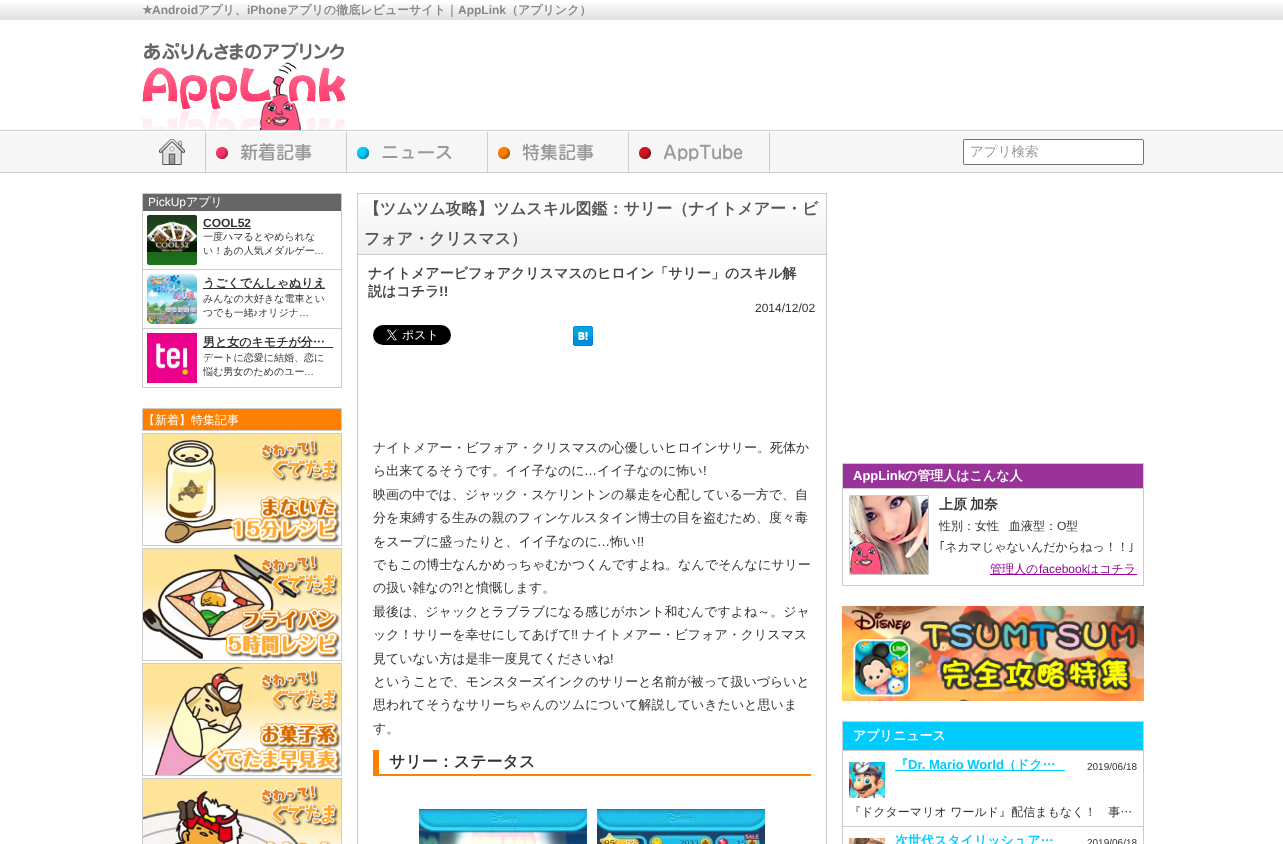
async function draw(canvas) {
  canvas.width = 1283;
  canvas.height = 844;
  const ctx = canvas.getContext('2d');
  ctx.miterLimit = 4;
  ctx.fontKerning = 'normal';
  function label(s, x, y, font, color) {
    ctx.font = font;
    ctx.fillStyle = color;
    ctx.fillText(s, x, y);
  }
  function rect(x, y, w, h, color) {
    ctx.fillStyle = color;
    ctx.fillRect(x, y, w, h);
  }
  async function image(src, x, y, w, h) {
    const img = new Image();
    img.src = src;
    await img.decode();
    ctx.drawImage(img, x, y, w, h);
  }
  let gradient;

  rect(0, 0, 1283, 844, '#fff');
  await image('assets/img1.png', 0, 4, 1283, 16);
  label('★', 142, 14, 'bold 12px DejaVu Sans', '#888');
  label('Android', 152, 14, 'bold 12px Liberation Sans', '#888');
  label('アプリ、', 198, 14, 'bold 12px WenQuanYi Zen Hei', '#888');
  label('iPhone', 247, 14, 'bold 12px Liberation Sans', '#888');
  label('アプリの徹底レビューサイト｜', 287, 14, 'bold 12px WenQuanYi Zen Hei', '#888');
  label('AppLink', 458, 14, 'bold 12px Liberation Sans', '#888');
  label('（アプリンク）', 506, 14, 'bold 12px WenQuanYi Zen Hei', '#888');
  await image('assets/img2.png', 142, 42, 204, 88);
  rect(0, 132, 1283, 40, '#f6f6f6');
  rect(0, 130, 1283, 1, '#ccc');
  rect(0, 172, 1283, 1, '#ccc');
  await image('assets/img3.png', 159, 139, 26, 26);
  rect(205, 132, 1, 40, '#ccc');
  await image('assets/img4.png', 216, 143, 96, 18);
  rect(346, 132, 1, 40, '#ccc');
  await image('assets/img5.png', 357, 146, 94, 13);
  rect(487, 132, 1, 40, '#ccc');
  await image('assets/img6.png', 498, 143, 96, 18);
  rect(628, 132, 1, 40, '#ccc');
  await image('assets/img7.png', 639, 144, 104, 17);
  rect(769, 132, 1, 40, '#ccc');
  ctx.fillStyle = '#fff';
  ctx.beginPath();
  ctx.roundRect(963.5, 139.5, 180, 25, 1.5);
  ctx.fill();
  ctx.strokeStyle = '#767676';
  ctx.stroke();
  label('アプリ検索', 970, 156, '500 13.5px WenQuanYi Zen Hei', '#999');
  rect(142, 193, 200, 1, '#ccc');
  rect(341, 193, 1, 195, '#ccc');
  rect(142, 193, 1, 195, '#ccc');
  rect(143, 194, 198, 17, '#666');
  label('PickUp', 148, 206, '12px Liberation Sans', '#fff');
  label('アプリ', 186, 206, '500 12px WenQuanYi Zen Hei', '#fff');
  rect(143, 269, 198, 1, '#ccc');
  await image('assets/img8.png', 147, 215, 50, 50);
  label('COOL52', 203, 227, 'bold 12px Liberation Sans', '#333');
  rect(203, 228, 48, 1, '#333');
  label('一度ハマるとやめられな', 203, 240, '500 10px WenQuanYi Zen Hei', '#333');
  label('い！あの人気メダルゲー', 203, 254, '500 10px WenQuanYi Zen Hei', '#333');
  label('…', 314, 254, '10px Liberation Sans', '#333');
  rect(143, 328, 198, 1, '#ccc');
  await image('assets/img9.png', 147, 274, 50, 50);
  rect(203, 288, 122, 1, '#333');
  label('うごくでんしゃぬりえ', 203, 287, 'bold 12px WenQuanYi Zen Hei', '#333');
  label('みんなの大好きな電車とい', 203, 302, '500 10px WenQuanYi Zen Hei', '#333');
  label('つでも一緒', 203, 316, '500 10px WenQuanYi Zen Hei', '#333');
  label('♪', 253, 316, '10px Liberation Sans', '#333');
  label('オリジナ', 258, 316, '500 10px WenQuanYi Zen Hei', '#333');
  label('…', 299, 316, '10px Liberation Sans', '#333');
  rect(143, 387, 198, 1, '#ccc');
  await image('assets/img10.png', 147, 333, 50, 50);
  rect(203, 347, 130, 1, '#333');
  label('男と女のキモチが分…', 203, 346, 'bold 12px WenQuanYi Zen Hei', '#333');
  label('デートに恋愛に結婚、恋に', 203, 361, '500 10px WenQuanYi Zen Hei', '#333');
  label('悩む男女のためのユー', 203, 375, '500 10px WenQuanYi Zen Hei', '#333');
  label('…', 304, 375, '10px Liberation Sans', '#333');
  ctx.fillStyle = '#ff8000';
  ctx.beginPath();
  ctx.rect(142.5, 408.5, 199, 22);
  ctx.fill();
  ctx.strokeStyle = '#ccc';
  ctx.stroke();
  label('【新着】特集記事', 143, 424, '500 12px WenQuanYi Zen Hei', '#fff');
  ctx.strokeRect(142.5, 433.5, 199, 112);
  await image('assets/img11.png', 143, 434, 198, 110);
  ctx.strokeRect(142.5, 548.5, 199, 112);
  await image('assets/img12.png', 143, 549, 198, 111);
  ctx.strokeRect(142.5, 663.5, 199, 112);
  await image('assets/img13.png', 143, 664, 198, 111);
  ctx.strokeRect(142.5, 778.5, 199, 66);
  await image('assets/img14.png', 143, 779, 198, 65);
  ctx.strokeRect(357.5, 193.5, 469, 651);
  gradient = ctx.createLinearGradient(592, 194, 592, 254);
  gradient.addColorStop(0, '#fff');
  gradient.addColorStop(1, '#f0f0f0');
  ctx.fillStyle = gradient;
  ctx.fillRect(358, 204, 468, 50);
  rect(358, 254, 468, 1, '#ccc');
  label('【ツムツム攻略】ツムスキル図鑑：サリー（ナイトメアー・ビ', 364, 214, 'bold 16px WenQuanYi Zen Hei', '#555');
  label('フォア・クリスマス）', 364, 244, 'bold 16px WenQuanYi Zen Hei', '#555');
  label('ナイトメアービフォアクリスマスのヒロイン「サリー」のスキル解', 368, 278, 'bold 14px WenQuanYi Zen Hei', '#444');
  label('説はコチラ', 368, 296, 'bold 14px WenQuanYi Zen Hei', '#444');
  label('!!', 439, 296, 'bold 14px Liberation Sans', '#444');
  label('2014/12/02', 755, 312, '12px Liberation Sans', '#333');
  await image('assets/img15.png', 373, 325, 78, 20);
  await image('assets/img16.png', 573, 326, 20, 20);
  label('ナイトメアー・ビフォア・クリスマスの心優しいヒロインサリー。死体か', 373, 452, '500 13px WenQuanYi Zen Hei', '#333');
  label('ら出来てるそうです。イイ子なのに', 373, 475, '500 13px WenQuanYi Zen Hei', '#333');
  label('…', 584, 475, '13px Liberation Sans', '#333');
  label('イイ子なのに怖い', 597, 475, '500 13px WenQuanYi Zen Hei', '#333');
  label('!', 703, 475, '13px Liberation Sans', '#333');
  label('映画の中では、ジャック・スケリントンの暴走を心配している一方で、自', 373, 499, '500 13px WenQuanYi Zen Hei', '#333');
  label('分を束縛する生みの親のフィンケルスタイン博士の目を盗むため、度々毒', 373, 522, '500 13px WenQuanYi Zen Hei', '#333');
  label('をスープに盛ったりと、イイ子なのに', 373, 546, '500 13px WenQuanYi Zen Hei', '#333');
  label('…', 597, 546, '13px Liberation Sans', '#333');
  label('怖い', 610, 546, '500 13px WenQuanYi Zen Hei', '#333');
  label('!!', 637, 546, '13px Liberation Sans', '#333');
  label('でもこの博士なんかめっちゃむかつくんですよね。なんでそんなにサリー', 373, 569, '500 13px WenQuanYi Zen Hei', '#333');
  label('の扱い雑なの', 373, 592, '500 13px WenQuanYi Zen Hei', '#333');
  label('?!', 452, 592, '13px Liberation Sans', '#333');
  label('と憤慨します。', 463, 592, '500 13px WenQuanYi Zen Hei', '#333');
  label('最後は、ジャックとラブラブになる感じがホント和むんですよね～。ジャ', 373, 616, '500 13px WenQuanYi Zen Hei', '#333');
  label('ック！サリーを幸せにしてあげて', 373, 639, '500 13px WenQuanYi Zen Hei', '#333');
  label('!!', 571, 639, '13px Liberation Sans', '#333');
  label('ナイトメアー・ビフォア・クリスマス', 582, 639, '500 13px WenQuanYi Zen Hei', '#333');
  label('見ていない方は是非一度見てくださいね', 373, 663, '500 13px WenQuanYi Zen Hei', '#333');
  label('!', 610, 663, '13px Liberation Sans', '#333');
  label('ということで、モンスターズインクのサリーと名前が被って扱いづらいと', 373, 686, '500 13px WenQuanYi Zen Hei', '#333');
  label('思われてそうなサリーちゃんのツムについて解説していきたいと思いま', 373, 709, '500 13px WenQuanYi Zen Hei', '#333');
  label('す。', 373, 733, '500 13px WenQuanYi Zen Hei', '#333');
  rect(373, 774, 438, 2, '#ff8000');
  rect(373, 750, 6, 26, '#ff8000');
  label('サリー：ステータス', 389, 767, 'bold 16px WenQuanYi Zen Hei', '#333');
  await image('assets/img17.png', 419, 809, 168, 35);
  await image('assets/img18.png', 597, 809, 168, 35);
  ctx.strokeRect(842.5, 463.5, 301, 122);
  rect(843, 464, 300, 24, '#939');
  rect(843, 488, 300, 1, '#ccc');
  label('AppLink', 853, 480, 'bold 13px Liberation Sans', '#fff');
  label('の管理人はこんな人', 904, 480, 'bold 13px WenQuanYi Zen Hei', '#fff');
  await image('assets/img19.png', 849, 495, 80, 80);
  label('上原', 939, 509, 'bold 14px WenQuanYi Zen Hei', '#333');
  label('加奈', 970, 509, 'bold 14px WenQuanYi Zen Hei', '#333');
  label('性別：女性', 939, 530, '500 12px WenQuanYi Zen Hei', '#333');
  label('血液型：', 1009, 530, '500 12px WenQuanYi Zen Hei', '#333');
  label('O', 1057, 530, '12px Liberation Sans', '#333');
  label('型', 1066, 530, '500 12px WenQuanYi Zen Hei', '#333');
  label('｢', 939, 551, '12px IPAGothic', '#333');
  label('ネカマじゃないんだからねっ！！', 945, 551, '500 12px WenQuanYi Zen Hei', '#333');
  label('｣', 1128, 551, '12px IPAGothic', '#333');
  rect(990, 574, 147, 1, '#909');
  label('管理人の', 990, 573, '500 12px WenQuanYi Zen Hei', '#909');
  label('facebook', 1039, 573, '12px Liberation Sans', '#909');
  label('はコチラ', 1087, 573, '500 12px WenQuanYi Zen Hei', '#909');
  await image('assets/img20.png', 842, 606, 302, 95);
  ctx.strokeRect(842.5, 721.5, 301, 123);
  rect(843, 722, 300, 28, '#0cf');
  rect(843, 750, 300, 1, '#ccc');
  label('アプリニュース', 853, 740, 'bold 13px WenQuanYi Zen Hei', '#fff');
  rect(843, 826, 300, 1, '#ccc');
  label('『', 895, 769, 'bold 13px WenQuanYi Zen Hei', '#0cf');
  label('Dr. Mario World', 908, 769, 'bold 13px Liberation Sans', '#0cf');
  rect(895, 770, 170, 1, '#0cf');
  label('（ドク…', 1003, 769, 'bold 13px WenQuanYi Zen Hei', '#0cf');
  label('2019/06/18', 1087, 770, '10px Liberation Sans', '#333');
  label('『ドクターマリオ ワールド』配信まもなく！　事…', 849, 816, '500 12px WenQuanYi Zen Hei', '#333');
  await image('assets/img21.png', 849, 762, 36, 36);
  await image('assets/img22.png', 849, 838, 36, 6);
  label('次世代スタイリッシュア…', 895, 845, 'bold 13px WenQuanYi Zen Hei', '#0cf');
  label('2019/06/18', 1087, 846, '10px Liberation Sans', '#333');
}

draw(document.querySelector('canvas'));
